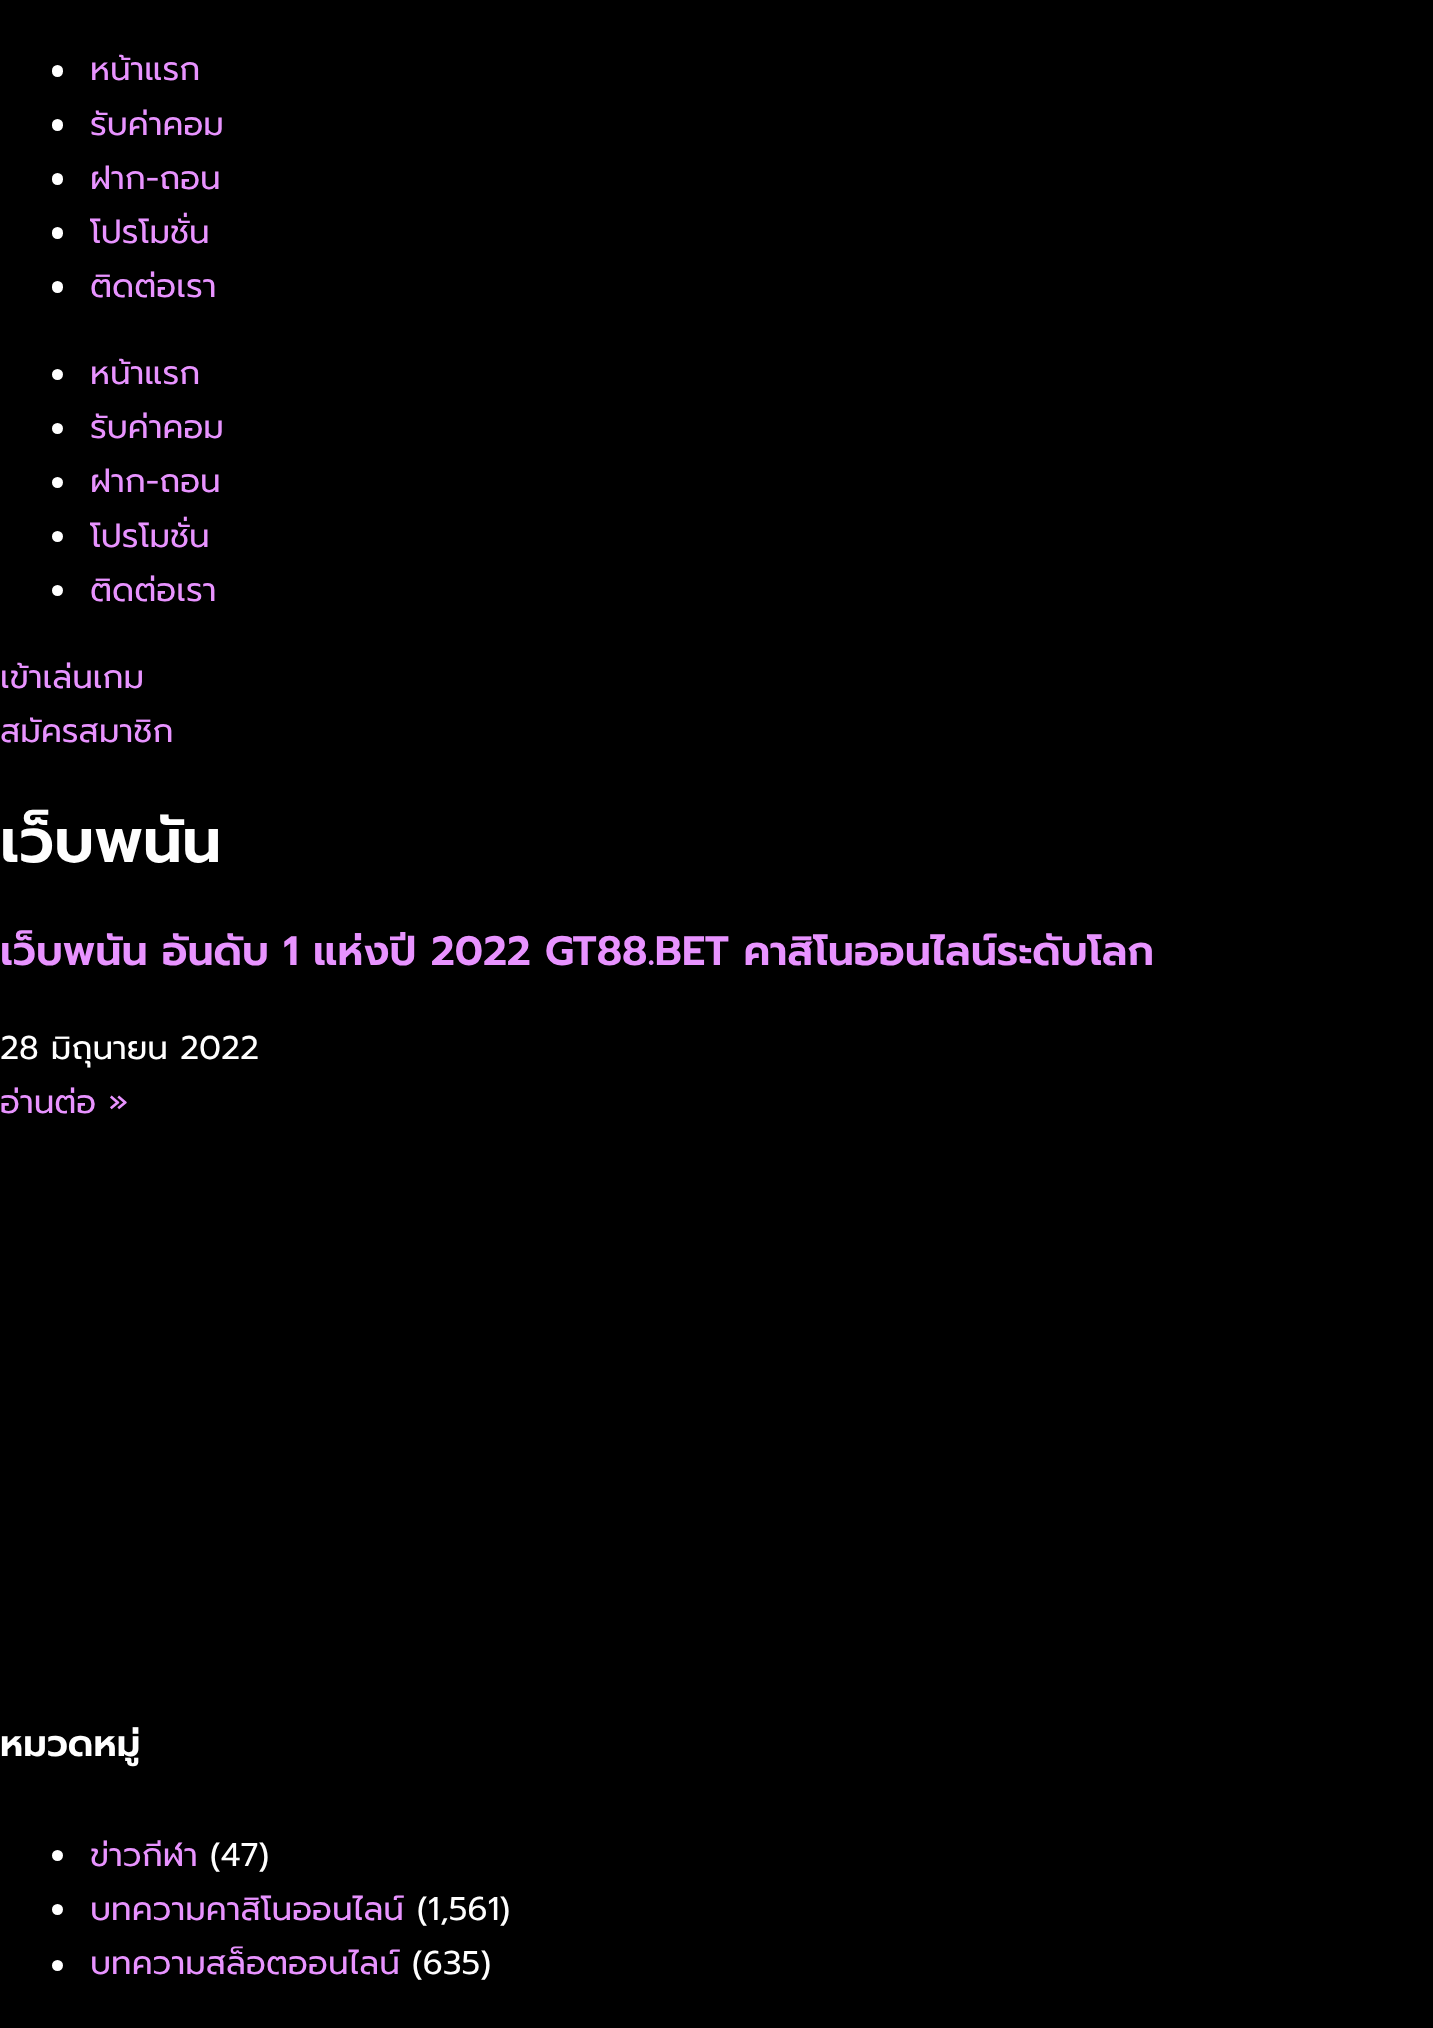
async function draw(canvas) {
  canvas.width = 1433;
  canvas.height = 2028;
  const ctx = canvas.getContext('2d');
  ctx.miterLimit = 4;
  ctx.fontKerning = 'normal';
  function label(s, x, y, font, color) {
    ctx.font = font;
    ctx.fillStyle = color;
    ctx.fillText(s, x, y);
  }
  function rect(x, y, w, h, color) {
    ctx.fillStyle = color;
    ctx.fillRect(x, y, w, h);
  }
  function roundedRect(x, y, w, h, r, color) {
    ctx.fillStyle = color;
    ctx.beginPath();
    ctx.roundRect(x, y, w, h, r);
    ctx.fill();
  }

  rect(0, 0, 1433, 2028, '#000');
  roundedRect(52, 65, 11, 12, 5.5, '#fff');
  label('หน้าแรก', 90, 80, '32.75px Prompt', '#e893ff');
  roundedRect(52, 119, 11, 12, 5.5, '#fff');
  label('รับค่าคอม', 90, 135, '32.75px Prompt', '#e893ff');
  roundedRect(52, 173, 11, 12, 5.5, '#fff');
  label('ฝาก-ถอน', 90, 189, '32.75px Prompt', '#e893ff');
  roundedRect(52, 227, 11, 12, 5.5, '#fff');
  label('โปรโมชั่น', 90, 243, '32.75px Prompt', '#e893ff');
  roundedRect(52, 281, 11, 12, 5.5, '#fff');
  label('ติดต่อเรา', 90, 297, '32.75px Prompt', '#e893ff');
  ctx.fillStyle = '#fff';
  ctx.beginPath();
  ctx.arc(57.5, 374.5, 5.5, 0, 2 * Math.PI);
  ctx.fill();
  label('หน้าแรก', 90, 384, '32.75px Prompt', '#e893ff');
  ctx.fillStyle = '#fff';
  ctx.beginPath();
  ctx.arc(57.5, 428.5, 5.5, 0, 2 * Math.PI);
  ctx.fill();
  label('รับค่าคอม', 90, 438, '32.75px Prompt', '#e893ff');
  ctx.fillStyle = '#fff';
  ctx.beginPath();
  ctx.arc(57.5, 482.5, 5.5, 0, 2 * Math.PI);
  ctx.fill();
  label('ฝาก-ถอน', 90, 492, '32.75px Prompt', '#e893ff');
  ctx.fillStyle = '#fff';
  ctx.beginPath();
  ctx.arc(57.5, 536.5, 5.5, 0, 2 * Math.PI);
  ctx.fill();
  label('โปรโมชั่น', 90, 547, '32.75px Prompt', '#e893ff');
  ctx.fillStyle = '#fff';
  ctx.beginPath();
  ctx.arc(57.5, 590.5, 5.5, 0, 2 * Math.PI);
  ctx.fill();
  label('ติดต่อเรา', 90, 601, '32.75px Prompt', '#e893ff');
  label('เข้าเล่นเกม', 0, 688, '32.75px Prompt', '#e893ff');
  label('สมัครสมาชิก', 0, 742, '32.75px Prompt', '#e893ff');
  label('เว็บพนัน', 0, 862, '600 61.5px Prompt', '#fefefe');
  label('เว็บพนัน อันดับ 1 แห่งปี 2022 GT88.BET คาสิโนออนไลน์ระดับโลก', 0, 965, '600 41.05px Prompt', '#e893ff');
  label('28 มิถุนายน 2022', 0, 1059, '32.75px Prompt', '#fefefe');
  label('อ่านต่อ »', 0, 1113, '32.75px Prompt', '#e893ff');
  label('หมวดหมู่', 0, 1756, '600 37px Prompt', '#fefefe');
  ctx.fillStyle = '#fff';
  ctx.beginPath();
  ctx.arc(57.5, 1855.5, 5.5, 0, 2 * Math.PI);
  ctx.fill();
  label('ข่าวกีฬา', 90, 1866, '32.75px Prompt', '#e893ff');
  label('(47)', 210, 1866, '32.75px Prompt', '#fefefe');
  ctx.fillStyle = '#fff';
  ctx.beginPath();
  ctx.arc(57.5, 1909.5, 5.5, 0, 2 * Math.PI);
  ctx.fill();
  label('บทความคาสิโนออนไลน์', 90, 1920, '32.75px Prompt', '#e893ff');
  label('(1,561)', 417, 1920, '32.75px Prompt', '#fefefe');
  ctx.fillStyle = '#fff';
  ctx.beginPath();
  ctx.arc(57.5, 1965.5, 5.5, 0, 2 * Math.PI);
  ctx.fill();
  label('บทความสล็อตออนไลน์', 90, 1974, '32.75px Prompt', '#e893ff');
  label('(635)', 412, 1974, '32.75px Prompt', '#fefefe');
}

draw(document.querySelector('canvas'));
